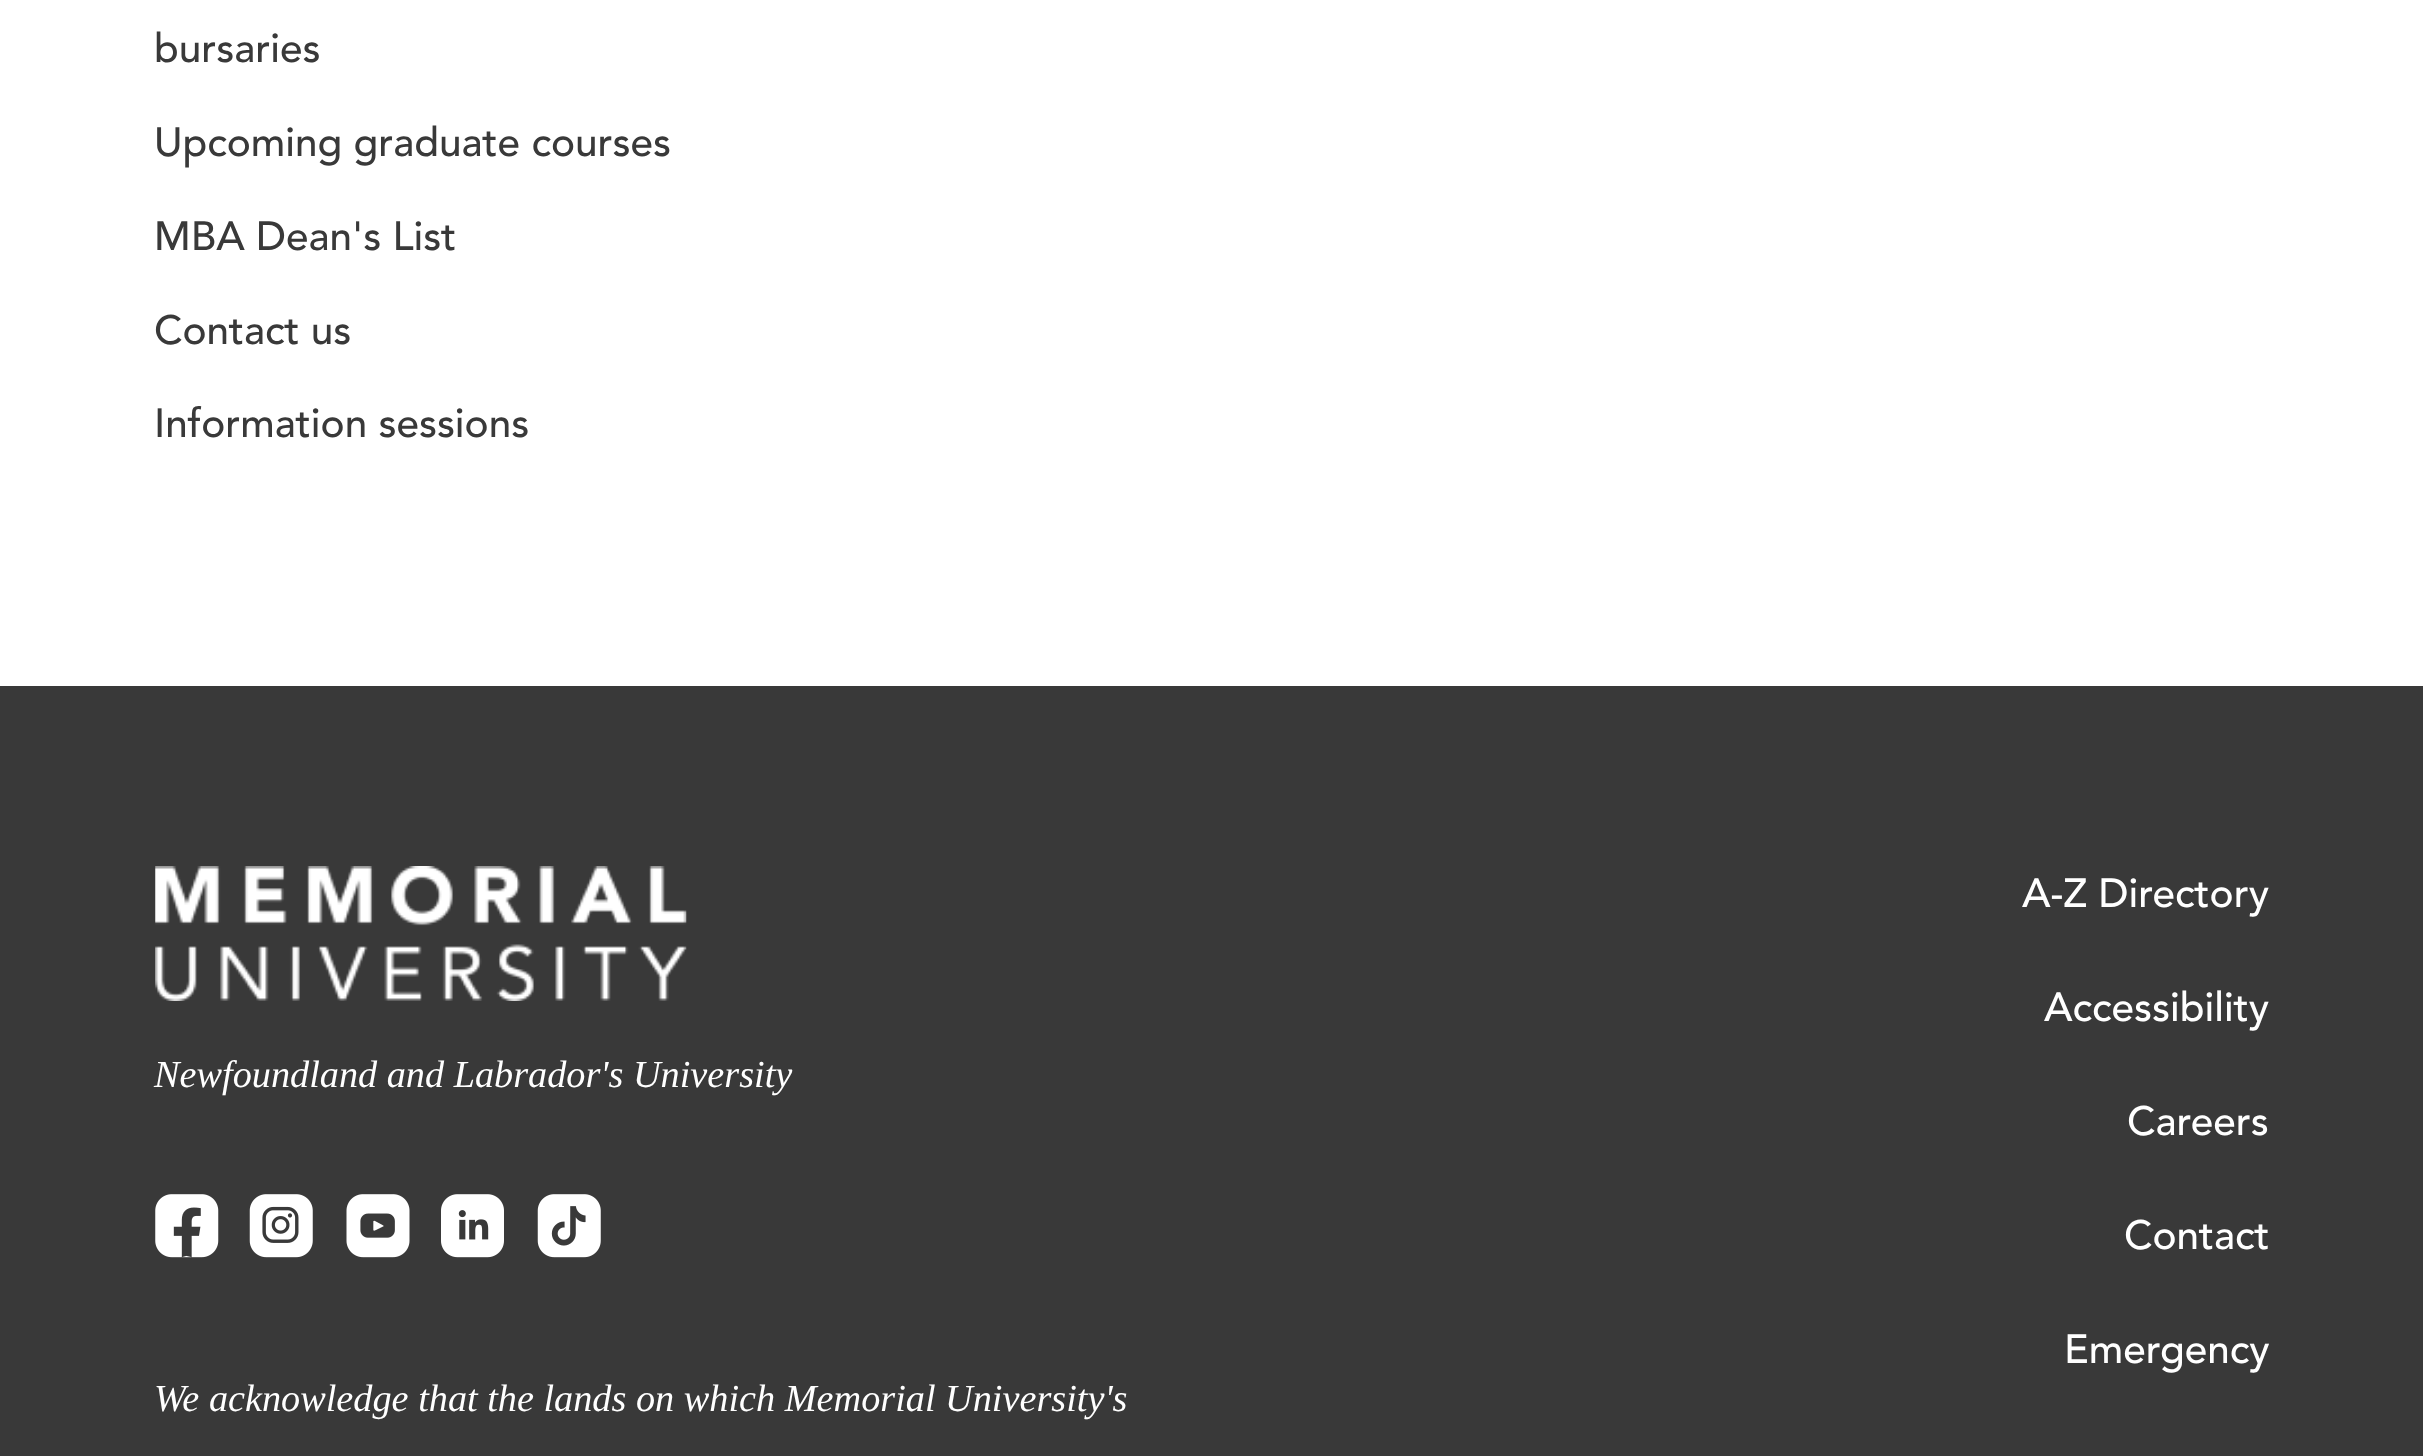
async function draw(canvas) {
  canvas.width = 2423;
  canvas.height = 1456;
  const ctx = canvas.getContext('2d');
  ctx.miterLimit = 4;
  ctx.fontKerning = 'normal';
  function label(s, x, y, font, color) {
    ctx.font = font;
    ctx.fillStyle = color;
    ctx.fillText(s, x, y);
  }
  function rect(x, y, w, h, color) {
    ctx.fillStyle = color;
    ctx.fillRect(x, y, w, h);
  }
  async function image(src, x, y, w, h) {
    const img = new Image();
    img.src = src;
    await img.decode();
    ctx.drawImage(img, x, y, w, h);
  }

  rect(0, 0, 2423, 1456, '#fff');
  label('bursaries', 154, 62, '500 40.5px "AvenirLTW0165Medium"', '#393939');
  label('Upcoming graduate courses', 154, 156, '500 40.5px "AvenirLTW0165Medium"', '#393939');
  label('MBA Dean\'s List', 154, 250, '500 40.5px "AvenirLTW0165Medium"', '#393939');
  label('Contact us', 154, 344, '500 40.5px "AvenirLTW0165Medium"', '#393939');
  label('Information sessions', 154, 437, '500 40.5px "AvenirLTW0165Medium"', '#393939');
  rect(0, 686, 2423, 770, '#393939');
  await image('assets/img1.png', 155, 866, 532, 135);
  label('Newfoundland and Labrador\'s University', 154, 1087, 'italic 38.25px Liberation Serif', '#fff');
  await image('assets/img2.png', 155, 1194, 64, 64);
  await image('assets/img3.png', 249, 1194, 64, 64);
  await image('assets/img4.png', 346, 1194, 64, 64);
  await image('assets/img5.png', 441, 1194, 63, 64);
  await image('assets/img6.png', 537, 1194, 64, 64);
  label('We acknowledge that the lands on which Memorial University\'s', 154, 1411, 'italic 38.25px Liberation Serif', '#fff');
  label('A-Z Directory', 2022, 907, '500 40.5px "AvenirLTW0165Medium"', '#fff');
  label('Accessibility', 2044, 1021, '500 40.5px "AvenirLTW0165Medium"', '#fff');
  label('Careers', 2127, 1135, '500 40.5px "AvenirLTW0165Medium"', '#fff');
  label('Contact', 2124, 1249, '500 40.5px "AvenirLTW0165Medium"', '#fff');
  label('Emergency', 2064, 1363, '500 40.5px "AvenirLTW0165Medium"', '#fff');
}

draw(document.querySelector('canvas'));
